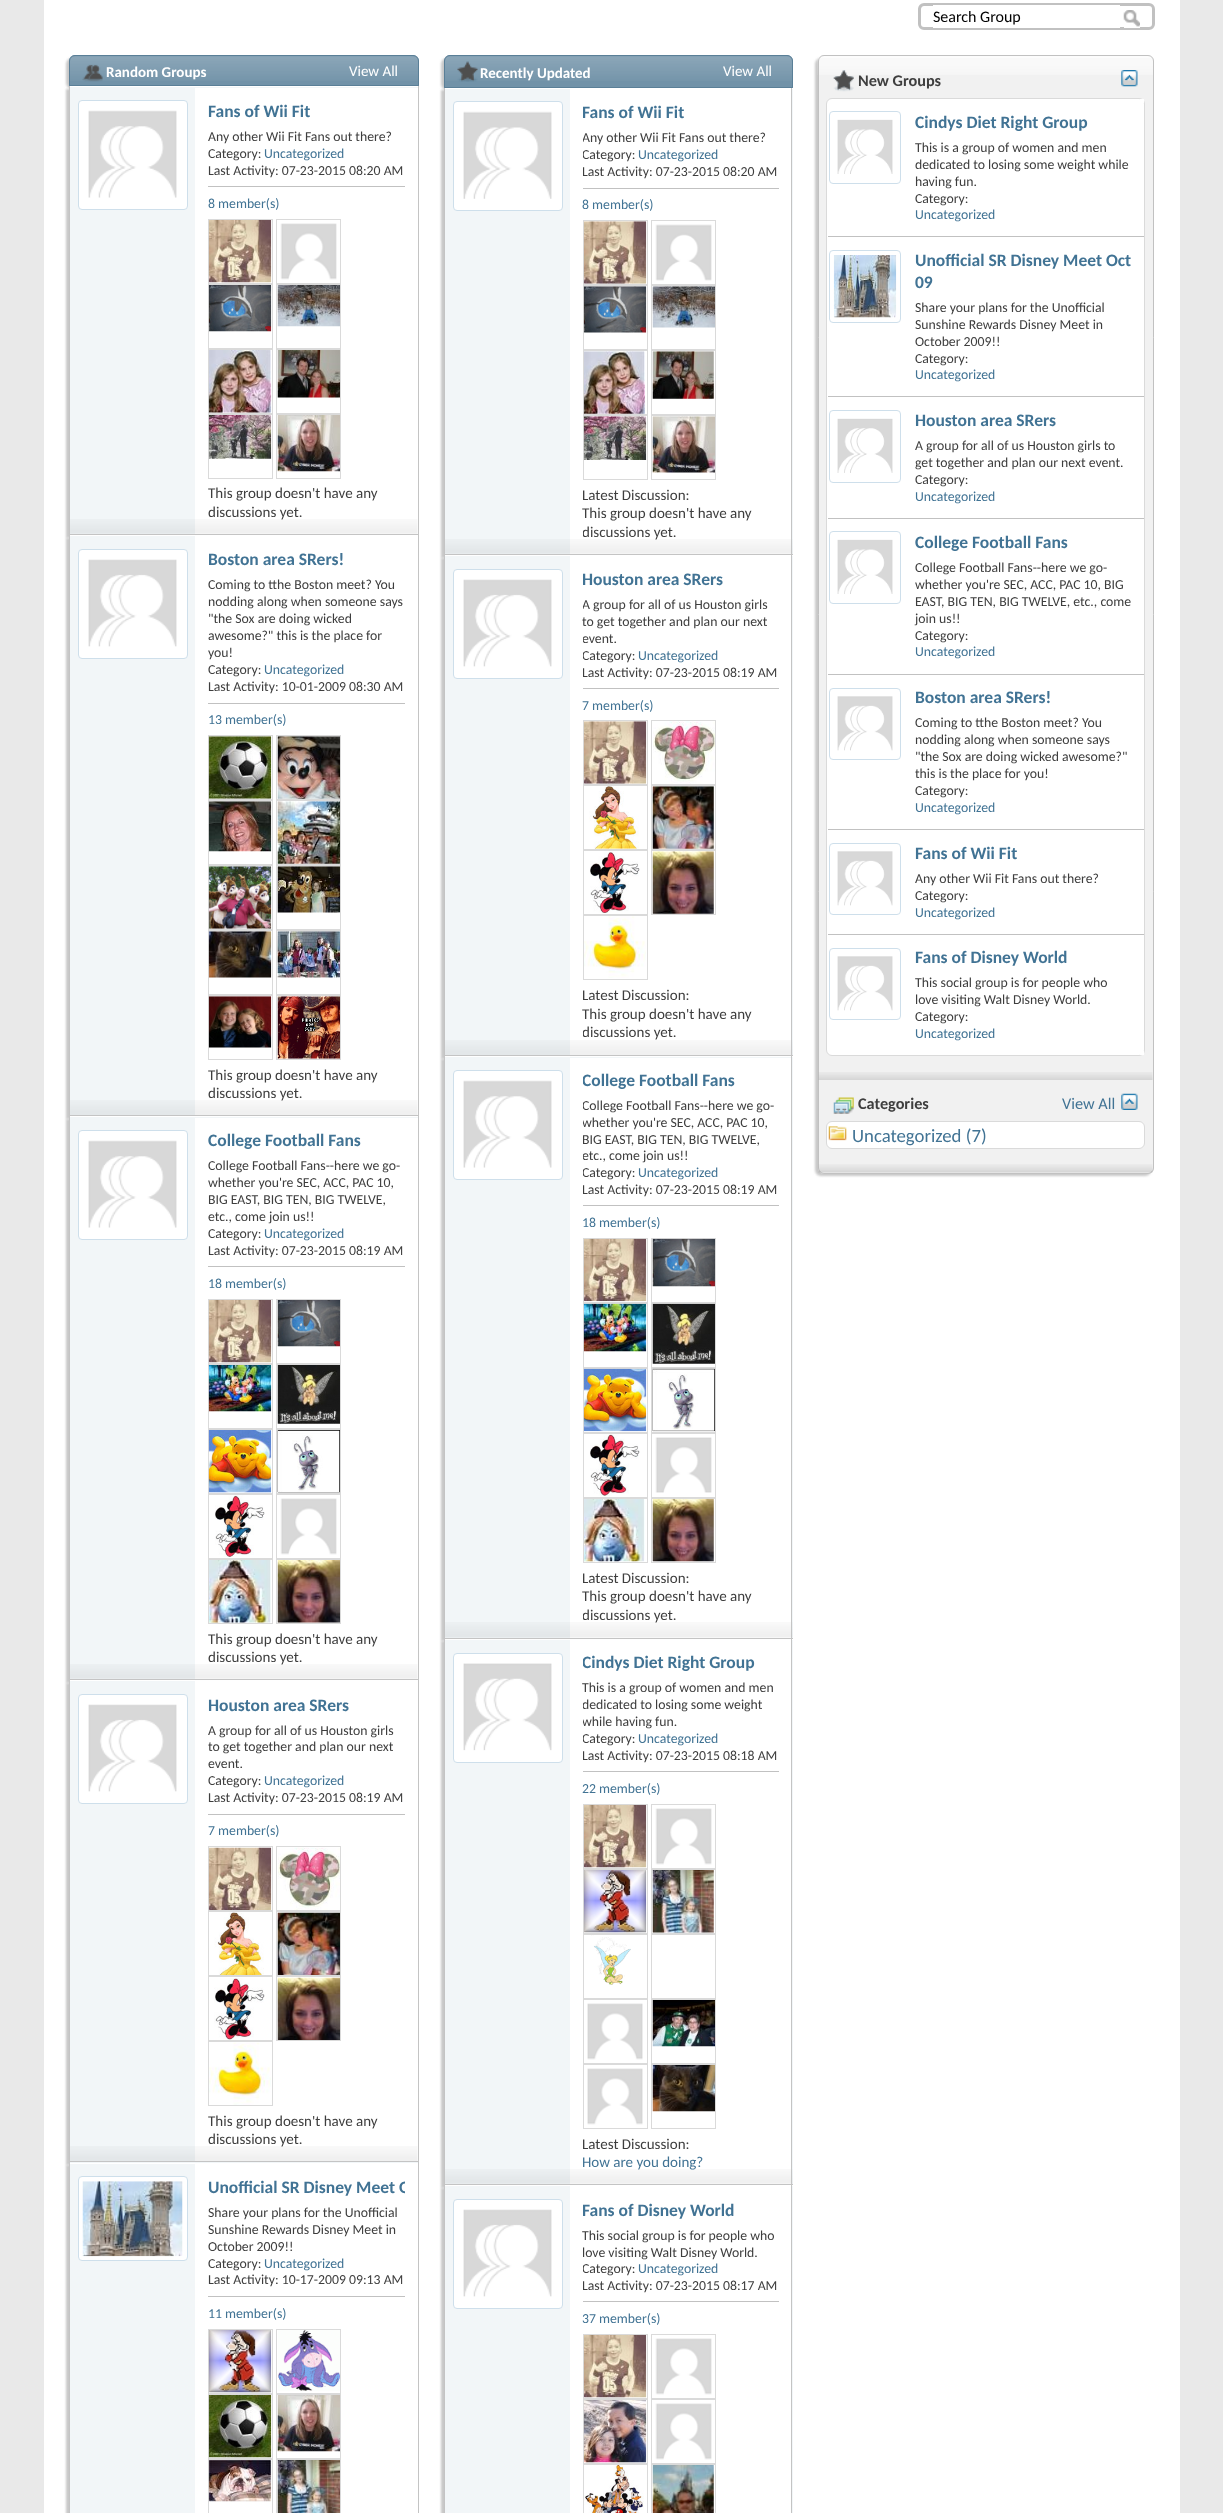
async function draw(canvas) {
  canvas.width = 1223;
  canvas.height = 2513;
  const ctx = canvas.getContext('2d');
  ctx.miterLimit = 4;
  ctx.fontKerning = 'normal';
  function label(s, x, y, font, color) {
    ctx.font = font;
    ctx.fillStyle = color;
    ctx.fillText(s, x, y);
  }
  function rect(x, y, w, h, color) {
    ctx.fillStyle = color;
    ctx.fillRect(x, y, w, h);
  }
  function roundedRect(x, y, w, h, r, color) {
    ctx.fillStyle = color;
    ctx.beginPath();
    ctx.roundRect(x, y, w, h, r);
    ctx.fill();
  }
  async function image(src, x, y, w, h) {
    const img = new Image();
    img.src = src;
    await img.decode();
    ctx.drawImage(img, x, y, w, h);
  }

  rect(0, 0, 1223, 2513, '#e9e9e9');
  rect(44, 0, 1136, 2513, '#fff');
  ctx.beginPath();
  ctx.roundRect(919.5, 4.5, 234, 24, 4.5);
  ctx.strokeStyle = '#c1c1c1';
  ctx.lineWidth = 3;
  ctx.stroke();
  rect(933, 5, 187, 23, '#fff');
  label('Search Group', 933, 22, '16px Carlito', '#000');
  rect(1124, 27, 16, 1, '#fff');
  await image('assets/img1.png', 1123, 10, 17, 17);
  ctx.fillStyle = '#c8c8c8';
  ctx.filter = 'blur(1px)';
  ctx.beginPath();
  ctx.roundRect(66, 58, 350, 31, 6);
  ctx.fill();
  ctx.filter = 'none';
  ctx.fillStyle = '#7192a8';
  ctx.beginPath();
  ctx.roundRect(69, 55, 350, 31, [6, 6, 0, 0]);
  ctx.fill();
  await image('assets/img2.png', 69, 56, 350, 25);
  ctx.beginPath();
  ctx.roundRect(69.5, 55.5, 349, 30, [5.5, 5.5, 0, 0]);
  ctx.strokeStyle = '#5a7f97';
  ctx.lineWidth = 1;
  ctx.stroke();
  await image('assets/img3.png', 82, 64, 21, 18);
  label('Random Groups', 106, 77, 'bold 15px Carlito', '#fff');
  label('View All', 349, 76, '15px Carlito', '#fff');
  ctx.fillStyle = '#c8c8c8';
  ctx.filter = 'blur(1px)';
  ctx.beginPath();
  ctx.rect(66, 89, 350, 449);
  ctx.fill();
  ctx.filter = 'none';
  rect(70, 87, 348, 447, '#f2f6f8');
  await image('assets/img4.png', 70, 519, 125, 15);
  rect(69, 86, 350, 1, '#fff');
  rect(418, 86, 1, 449, '#c4c4c4');
  rect(69, 534, 350, 1, '#c4c4c4');
  rect(69, 86, 1, 449, '#c4c4c4');
  ctx.fillStyle = '#fff';
  ctx.beginPath();
  ctx.roundRect(78.5, 100.5, 109, 109, 3.5);
  ctx.fill();
  ctx.strokeStyle = '#cedfeb';
  ctx.stroke();
  await image('assets/img5.png', 88, 110, 89, 88);
  rect(195, 88, 223, 446, '#fff');
  await image('assets/img6.png', 195, 519, 223, 15);
  label('Fans of Wii Fit', 208, 117, 'bold 17.5px Carlito', '#417394');
  label('Any other Wii Fit Fans out there?', 208, 141, '13.75px Carlito', '#3e3e3e');
  label('Category:', 208, 158, '13.75px Carlito', '#3e3e3e');
  label('Uncategorized', 264, 158, '13.75px Carlito', '#417394');
  label('Last Activity: 07-23-2015 08:20 AM', 208, 175, '13.75px Carlito', '#3e3e3e');
  rect(208, 186, 197, 1, '#c1c1c1');
  label('8 member(s)', 208, 208, '13.75px Carlito', '#417394');
  ctx.strokeStyle = '#dadada';
  ctx.strokeRect(208.5, 219.5, 64, 64);
  await image('assets/img7.png', 208, 220, 64, 63);
  ctx.strokeRect(276.5, 219.5, 64, 64);
  await image('assets/img8.png', 280, 223, 57, 57);
  ctx.strokeRect(208.5, 284.5, 64, 64);
  await image('assets/img9.png', 208, 285, 64, 47);
  ctx.strokeRect(276.5, 284.5, 64, 64);
  await image('assets/img10.png', 277, 285, 63, 42);
  ctx.strokeRect(208.5, 349.5, 64, 64);
  await image('assets/img11.png', 208, 350, 64, 63);
  ctx.strokeRect(276.5, 349.5, 64, 64);
  await image('assets/img12.png', 277, 350, 63, 48);
  ctx.strokeRect(208.5, 414.5, 64, 64);
  await image('assets/img13.png', 208, 415, 64, 44);
  ctx.strokeRect(276.5, 414.5, 64, 64);
  await image('assets/img14.png', 277, 415, 63, 57);
  label('This group doesn\'t have any', 208, 498, '15px Carlito', '#3e3e3e');
  label('discussions yet.', 208, 517, '15px Carlito', '#3e3e3e');
  ctx.fillStyle = '#c8c8c8';
  ctx.filter = 'blur(1px)';
  ctx.beginPath();
  ctx.rect(66, 538, 350, 581);
  ctx.fill();
  ctx.filter = 'none';
  rect(70, 536, 125, 579, '#f2f6f8');
  await image('assets/img15.png', 70, 1100, 125, 15);
  rect(69, 535, 350, 1, '#fff');
  rect(418, 535, 1, 581, '#c4c4c4');
  rect(69, 1115, 350, 1, '#c4c4c4');
  rect(69, 535, 1, 581, '#c4c4c4');
  ctx.fillStyle = '#fff';
  ctx.beginPath();
  ctx.roundRect(78.5, 549.5, 109, 109, 3.5);
  ctx.fill();
  ctx.strokeStyle = '#cedfeb';
  ctx.stroke();
  await image('assets/img16.png', 88, 559, 89, 88);
  rect(195, 536, 223, 579, '#fff');
  await image('assets/img17.png', 195, 1100, 223, 15);
  label('Boston area SRers!', 208, 565, 'bold 17.5px Carlito', '#417394');
  label('Coming to tthe Boston meet? You', 208, 589, '13.75px Carlito', '#3e3e3e');
  label('nodding along when someone says', 208, 606, '13.75px Carlito', '#3e3e3e');
  label('"the Sox are doing wicked', 208, 623, '13.75px Carlito', '#3e3e3e');
  label('awesome?" this is the place for', 208, 640, '13.75px Carlito', '#3e3e3e');
  label('you!', 208, 657, '13.75px Carlito', '#3e3e3e');
  label('Category:', 208, 674, '13.75px Carlito', '#3e3e3e');
  label('Uncategorized', 264, 674, '13.75px Carlito', '#417394');
  label('Last Activity: 10-01-2009 08:30 AM', 208, 691, '13.75px Carlito', '#3e3e3e');
  rect(208, 703, 197, 1, '#c1c1c1');
  label('13 member(s)', 208, 724, '13.75px Carlito', '#417394');
  ctx.strokeStyle = '#dadada';
  ctx.strokeRect(208.5, 735.5, 64, 64);
  await image('assets/img18.png', 208, 736, 64, 63);
  ctx.strokeRect(276.5, 735.5, 64, 64);
  await image('assets/img19.png', 277, 736, 63, 63);
  ctx.strokeRect(208.5, 800.5, 64, 64);
  await image('assets/img20.png', 208, 801, 64, 51);
  ctx.strokeRect(276.5, 800.5, 64, 64);
  await image('assets/img21.png', 277, 801, 63, 63);
  ctx.strokeRect(208.5, 865.5, 64, 64);
  await image('assets/img22.png', 208, 866, 64, 63);
  ctx.strokeRect(276.5, 865.5, 64, 64);
  await image('assets/img23.png', 277, 866, 63, 47);
  ctx.strokeRect(208.5, 930.5, 64, 64);
  await image('assets/img24.png', 208, 931, 64, 47);
  ctx.strokeRect(276.5, 930.5, 64, 64);
  await image('assets/img25.png', 277, 931, 63, 47);
  ctx.strokeRect(208.5, 995.5, 64, 64);
  await image('assets/img26.png', 208, 996, 64, 52);
  ctx.strokeRect(276.5, 995.5, 64, 64);
  await image('assets/img27.png', 277, 996, 63, 63);
  label('This group doesn\'t have any', 208, 1080, '15px Carlito', '#3e3e3e');
  label('discussions yet.', 208, 1098, '15px Carlito', '#3e3e3e');
  ctx.fillStyle = '#c8c8c8';
  ctx.filter = 'blur(1px)';
  ctx.beginPath();
  ctx.rect(66, 1119, 350, 564);
  ctx.fill();
  ctx.filter = 'none';
  rect(70, 1117, 348, 562, '#f2f6f8');
  await image('assets/img28.png', 70, 1664, 125, 15);
  rect(69, 1116, 350, 1, '#fff');
  rect(418, 1116, 1, 564, '#c4c4c4');
  rect(69, 1679, 350, 1, '#c4c4c4');
  rect(69, 1116, 1, 564, '#c4c4c4');
  ctx.fillStyle = '#fff';
  ctx.beginPath();
  ctx.roundRect(78.5, 1130.5, 109, 109, 3.5);
  ctx.fill();
  ctx.strokeStyle = '#cedfeb';
  ctx.stroke();
  await image('assets/img29.png', 88, 1140, 89, 88);
  rect(195, 1118, 223, 561, '#fff');
  await image('assets/img30.png', 195, 1664, 223, 15);
  label('College Football Fans', 208, 1146, 'bold 17.5px Carlito', '#417394');
  label('College Football Fans--here we go-', 208, 1170, '13.75px Carlito', '#3e3e3e');
  label('whether you\'re SEC, ACC, PAC 10,', 208, 1187, '13.75px Carlito', '#3e3e3e');
  label('BIG EAST, BIG TEN, BIG TWELVE,', 208, 1204, '13.75px Carlito', '#3e3e3e');
  label('etc., come join us!!', 208, 1221, '13.75px Carlito', '#3e3e3e');
  label('Category:', 208, 1238, '13.75px Carlito', '#3e3e3e');
  label('Uncategorized', 264, 1238, '13.75px Carlito', '#417394');
  label('Last Activity: 07-23-2015 08:19 AM', 208, 1255, '13.75px Carlito', '#3e3e3e');
  rect(208, 1266, 197, 1, '#c1c1c1');
  label('18 member(s)', 208, 1288, '13.75px Carlito', '#417394');
  ctx.strokeStyle = '#dadada';
  ctx.strokeRect(208.5, 1299.5, 64, 64);
  await image('assets/img7.png', 208, 1300, 64, 63);
  ctx.strokeRect(276.5, 1299.5, 64, 64);
  await image('assets/img31.png', 277, 1300, 63, 47);
  ctx.strokeRect(208.5, 1364.5, 64, 64);
  await image('assets/img32.png', 208, 1365, 64, 47);
  ctx.strokeRect(276.5, 1364.5, 64, 64);
  await image('assets/img33.png', 277, 1365, 63, 59);
  ctx.strokeRect(208.5, 1429.5, 64, 64);
  await image('assets/img34.png', 208, 1430, 64, 63);
  ctx.strokeRect(276.5, 1429.5, 64, 64);
  await image('assets/img35.png', 277, 1430, 63, 63);
  ctx.strokeRect(208.5, 1494.5, 64, 64);
  await image('assets/img36.png', 215, 1495, 50, 62);
  ctx.strokeRect(276.5, 1494.5, 64, 64);
  await image('assets/img8.png', 280, 1498, 57, 57);
  ctx.strokeRect(208.5, 1559.5, 64, 64);
  await image('assets/img37.png', 209, 1560, 62, 63);
  ctx.strokeRect(276.5, 1559.5, 64, 64);
  await image('assets/img38.png', 277, 1560, 63, 63);
  label('This group doesn\'t have any', 208, 1644, '15px Carlito', '#3e3e3e');
  label('discussions yet.', 208, 1662, '15px Carlito', '#3e3e3e');
  ctx.fillStyle = '#c8c8c8';
  ctx.filter = 'blur(1px)';
  ctx.beginPath();
  ctx.rect(66, 1683, 350, 482);
  ctx.fill();
  ctx.filter = 'none';
  rect(70, 1681, 348, 482, '#f2f6f8');
  await image('assets/img39.png', 70, 2146, 125, 15);
  rect(69, 1680, 350, 1, '#fff');
  rect(418, 1680, 1, 483, '#c4c4c4');
  rect(69, 2161, 350, 1, '#c4c4c4');
  rect(69, 1680, 1, 483, '#c4c4c4');
  ctx.fillStyle = '#fff';
  ctx.beginPath();
  ctx.roundRect(78.5, 1694.5, 109, 109, 3.5);
  ctx.fill();
  ctx.strokeStyle = '#cedfeb';
  ctx.stroke();
  await image('assets/img16.png', 88, 1704, 89, 88);
  rect(195, 1681, 223, 480, '#fff');
  await image('assets/img40.png', 195, 2146, 223, 15);
  label('Houston area SRers', 208, 1711, 'bold 17.5px Carlito', '#417394');
  label('A group for all of us Houston girls', 208, 1735, '13.75px Carlito', '#3e3e3e');
  label('to get together and plan our next', 208, 1751, '13.75px Carlito', '#3e3e3e');
  label('event.', 208, 1768, '13.75px Carlito', '#3e3e3e');
  label('Category:', 208, 1785, '13.75px Carlito', '#3e3e3e');
  label('Uncategorized', 264, 1785, '13.75px Carlito', '#417394');
  label('Last Activity: 07-23-2015 08:19 AM', 208, 1802, '13.75px Carlito', '#3e3e3e');
  rect(208, 1814, 197, 1, '#c1c1c1');
  label('7 member(s)', 208, 1835, '13.75px Carlito', '#417394');
  ctx.strokeStyle = '#dadada';
  ctx.strokeRect(208.5, 1846.5, 64, 64);
  await image('assets/img41.png', 208, 1847, 64, 63);
  ctx.strokeRect(276.5, 1846.5, 64, 64);
  await image('assets/img42.png', 278, 1847, 62, 63);
  ctx.strokeRect(208.5, 1911.5, 64, 64);
  await image('assets/img43.png', 214, 1912, 50, 63);
  ctx.strokeRect(276.5, 1911.5, 64, 64);
  await image('assets/img44.png', 277, 1912, 63, 63);
  ctx.strokeRect(208.5, 1976.5, 64, 64);
  await image('assets/img45.png', 214, 1978, 51, 62);
  ctx.strokeRect(276.5, 1976.5, 64, 64);
  await image('assets/img46.png', 277, 1977, 63, 63);
  ctx.strokeRect(208.5, 2041.5, 64, 64);
  await image('assets/img47.png', 209, 2042, 62, 63);
  label('This group doesn\'t have any', 208, 2126, '15px Carlito', '#3e3e3e');
  label('discussions yet.', 208, 2144, '15px Carlito', '#3e3e3e');
  ctx.fillStyle = '#c8c8c8';
  ctx.filter = 'blur(1px)';
  ctx.beginPath();
  ctx.rect(66, 2165, 350, 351);
  ctx.fill();
  ctx.filter = 'none';
  rect(70, 2164, 125, 349, '#f2f6f8');
  rect(69, 2163, 350, 1, '#fff');
  rect(418, 2163, 1, 350, '#c4c4c4');
  rect(69, 2163, 1, 350, '#c4c4c4');
  ctx.fillStyle = '#fff';
  ctx.beginPath();
  ctx.roundRect(78.5, 2176.5, 109, 84, 3.5);
  ctx.fill();
  ctx.strokeStyle = '#cedfeb';
  ctx.stroke();
  await image('assets/img48.png', 82, 2181, 101, 76);
  rect(195, 2164, 223, 349, '#fff');
  ctx.save();
  ctx.beginPath();
  ctx.rect(208, 2176, 197, 28);
  ctx.clip();
  label('Unofficial SR Disney Meet O', 208, 2193, 'bold 17.5px Carlito', '#417394');
  ctx.restore();
  label('Share your plans for the Unofficial', 208, 2217, '13.75px Carlito', '#3e3e3e');
  label('Sunshine Rewards Disney Meet in', 208, 2234, '13.75px Carlito', '#3e3e3e');
  label('October 2009!!', 208, 2251, '13.75px Carlito', '#3e3e3e');
  label('Category:', 208, 2268, '13.75px Carlito', '#3e3e3e');
  label('Uncategorized', 264, 2268, '13.75px Carlito', '#417394');
  label('Last Activity: 10-17-2009 09:13 AM', 208, 2284, '13.75px Carlito', '#3e3e3e');
  rect(208, 2296, 197, 1, '#c1c1c1');
  label('11 member(s)', 208, 2318, '13.75px Carlito', '#417394');
  ctx.strokeStyle = '#dadada';
  ctx.strokeRect(208.5, 2329.5, 64, 64);
  await image('assets/img49.png', 208, 2330, 64, 63);
  ctx.strokeRect(276.5, 2329.5, 64, 64);
  await image('assets/img50.png', 278, 2330, 62, 61);
  ctx.strokeRect(208.5, 2394.5, 64, 64);
  await image('assets/img51.png', 208, 2395, 64, 63);
  ctx.strokeRect(276.5, 2394.5, 64, 64);
  await image('assets/img14.png', 277, 2395, 63, 57);
  ctx.strokeRect(208.5, 2459.5, 64, 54);
  await image('assets/img52.png', 208, 2460, 64, 42);
  ctx.strokeRect(276.5, 2459.5, 64, 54);
  await image('assets/img53.png', 277, 2460, 63, 53);
  ctx.fillStyle = '#c8c8c8';
  ctx.filter = 'blur(1px)';
  ctx.beginPath();
  ctx.roundRect(441, 58, 349, 32, 6);
  ctx.fill();
  ctx.filter = 'none';
  ctx.fillStyle = '#7192a8';
  ctx.beginPath();
  ctx.roundRect(444, 55, 349, 33, [6, 6, 0, 0]);
  ctx.fill();
  await image('assets/img54.png', 444, 56, 349, 25);
  ctx.beginPath();
  ctx.roundRect(444.5, 55.5, 348, 32, [5.5, 5.5, 0, 0]);
  ctx.strokeStyle = '#5a7f97';
  ctx.stroke();
  await image('assets/img55.png', 457, 61, 21, 21);
  label('Recently Updated', 480, 78, 'bold 15px Carlito', '#fff');
  label('View All', 723, 76, '15px Carlito', '#fff');
  ctx.fillStyle = '#c8c8c8';
  ctx.filter = 'blur(1px)';
  ctx.beginPath();
  ctx.rect(441, 90, 349, 468);
  ctx.fill();
  ctx.filter = 'none';
  rect(445, 89, 348, 465, '#f2f6f8');
  await image('assets/img56.png', 445, 539, 348, 15);
  rect(444, 88, 349, 1, '#fff');
  rect(791, 88, 1, 467, '#c4c4c4');
  rect(444, 554, 349, 1, '#c4c4c4');
  rect(444, 88, 1, 467, '#c4c4c4');
  ctx.fillStyle = '#fff';
  ctx.beginPath();
  ctx.roundRect(453.5, 101.5, 109, 109, 3.5);
  ctx.fill();
  ctx.strokeStyle = '#cedfeb';
  ctx.stroke();
  await image('assets/img57.png', 463, 111, 89, 88);
  rect(570, 89, 221, 465, '#fff');
  await image('assets/img58.png', 570, 539, 221, 15);
  ctx.save();
  ctx.beginPath();
  ctx.rect(583, 101, 196, 29);
  ctx.clip();
  label('Fans of Wii Fit', 582, 118, 'bold 17.5px Carlito', '#417394');
  ctx.restore();
  ctx.save();
  ctx.beginPath();
  ctx.rect(583, 130, 196, 16);
  ctx.clip();
  label('Any other Wii Fit Fans out there?', 582, 142, '13.75px Carlito', '#3e3e3e');
  ctx.restore();
  ctx.save();
  ctx.beginPath();
  ctx.rect(583, 146, 196, 18);
  ctx.clip();
  label('Category:', 582, 159, '13.75px Carlito', '#3e3e3e');
  ctx.restore();
  label('Uncategorized', 638, 159, '13.75px Carlito', '#417394');
  ctx.save();
  ctx.beginPath();
  ctx.rect(583, 164, 196, 16);
  ctx.clip();
  label('Last Activity: 07-23-2015', 582, 176, '13.75px Carlito', '#3e3e3e');
  ctx.restore();
  label('08:20 AM', 723, 176, '13.75px Carlito', '#3e3e3e');
  rect(583, 188, 196, 1, '#c1c1c1');
  label('8 member(s)', 582, 209, '13.75px Carlito', '#417394');
  ctx.strokeStyle = '#dadada';
  ctx.strokeRect(583.5, 220.5, 64, 64);
  await image('assets/img59.png', 583, 221, 64, 63);
  ctx.strokeRect(651.5, 220.5, 64, 64);
  await image('assets/img60.png', 655, 224, 57, 57);
  ctx.strokeRect(583.5, 285.5, 64, 64);
  await image('assets/img61.png', 583, 286, 64, 47);
  ctx.strokeRect(651.5, 285.5, 64, 64);
  await image('assets/img62.png', 652, 286, 63, 42);
  ctx.strokeRect(583.5, 350.5, 64, 64);
  await image('assets/img63.png', 583, 351, 62, 63);
  ctx.strokeRect(651.5, 350.5, 64, 64);
  await image('assets/img64.png', 652, 351, 62, 48);
  ctx.strokeRect(583.5, 415.5, 64, 64);
  await image('assets/img65.png', 583, 416, 64, 44);
  ctx.strokeRect(651.5, 415.5, 64, 64);
  await image('assets/img66.png', 652, 416, 63, 57);
  ctx.save();
  ctx.beginPath();
  ctx.rect(583, 486, 196, 55);
  ctx.clip();
  label('Latest Discussion:', 582, 500, '15px Carlito', '#3e3e3e');
  ctx.restore();
  label('This group doesn\'t have any', 582, 518, '15px Carlito', '#3e3e3e');
  ctx.save();
  ctx.beginPath();
  ctx.rect(583, 486, 196, 55);
  ctx.clip();
  label('discussions yet.', 582, 537, '15px Carlito', '#3e3e3e');
  ctx.restore();
  ctx.fillStyle = '#c8c8c8';
  ctx.filter = 'blur(1px)';
  ctx.beginPath();
  ctx.rect(441, 558, 349, 501);
  ctx.fill();
  ctx.filter = 'none';
  rect(445, 556, 348, 499, '#f2f6f8');
  await image('assets/img67.png', 445, 1040, 348, 15);
  rect(444, 555, 349, 1, '#fff');
  rect(791, 555, 1, 501, '#c4c4c4');
  rect(444, 1055, 349, 1, '#c4c4c4');
  rect(444, 555, 1, 501, '#c4c4c4');
  ctx.fillStyle = '#fff';
  ctx.beginPath();
  ctx.roundRect(453.5, 569.5, 109, 109, 3.5);
  ctx.fill();
  ctx.strokeStyle = '#cedfeb';
  ctx.stroke();
  await image('assets/img16.png', 463, 579, 89, 88);
  rect(570, 556, 221, 499, '#fff');
  await image('assets/img68.png', 570, 1040, 221, 15);
  ctx.save();
  ctx.beginPath();
  ctx.rect(583, 569, 196, 27);
  ctx.clip();
  label('Houston area SRers', 582, 585, 'bold 17.5px Carlito', '#417394');
  ctx.restore();
  ctx.save();
  ctx.beginPath();
  ctx.rect(583, 596, 196, 52);
  ctx.clip();
  label('A group for all of us Houston girls', 582, 609, '13.75px Carlito', '#3e3e3e');
  ctx.restore();
  label('to get together and plan our next', 582, 626, '13.75px Carlito', '#3e3e3e');
  ctx.save();
  ctx.beginPath();
  ctx.rect(583, 596, 196, 52);
  ctx.clip();
  label('event.', 582, 643, '13.75px Carlito', '#3e3e3e');
  ctx.restore();
  ctx.save();
  ctx.beginPath();
  ctx.rect(583, 648, 196, 16);
  ctx.clip();
  label('Category:', 582, 660, '13.75px Carlito', '#3e3e3e');
  ctx.restore();
  label('Uncategorized', 638, 660, '13.75px Carlito', '#417394');
  ctx.save();
  ctx.beginPath();
  ctx.rect(583, 664, 196, 17);
  ctx.clip();
  label('Last Activity: 07-23-2015', 582, 677, '13.75px Carlito', '#3e3e3e');
  ctx.restore();
  label('08:19 AM', 723, 677, '13.75px Carlito', '#3e3e3e');
  rect(583, 688, 196, 1, '#c1c1c1');
  label('7 member(s)', 582, 710, '13.75px Carlito', '#417394');
  ctx.strokeStyle = '#dadada';
  ctx.strokeRect(583.5, 720.5, 64, 64);
  await image('assets/img69.png', 583, 721, 64, 63);
  ctx.strokeRect(651.5, 720.5, 64, 64);
  await image('assets/img70.png', 653, 721, 62, 63);
  ctx.strokeRect(583.5, 785.5, 64, 64);
  await image('assets/img71.png', 589, 786, 50, 63);
  ctx.strokeRect(651.5, 785.5, 64, 64);
  await image('assets/img72.png', 652, 786, 62, 63);
  ctx.strokeRect(583.5, 850.5, 64, 64);
  await image('assets/img73.png', 590, 851, 50, 62);
  ctx.strokeRect(651.5, 850.5, 64, 64);
  await image('assets/img74.png', 652, 851, 62, 63);
  ctx.strokeRect(583.5, 915.5, 64, 64);
  await image('assets/img75.png', 584, 916, 62, 62);
  ctx.save();
  ctx.beginPath();
  ctx.rect(583, 986, 196, 57);
  ctx.clip();
  label('Latest Discussion:', 582, 1000, '15px Carlito', '#3e3e3e');
  ctx.restore();
  label('This group doesn\'t have any', 582, 1019, '15px Carlito', '#3e3e3e');
  ctx.save();
  ctx.beginPath();
  ctx.rect(583, 986, 196, 57);
  ctx.clip();
  label('discussions yet.', 582, 1037, '15px Carlito', '#3e3e3e');
  ctx.restore();
  ctx.fillStyle = '#c8c8c8';
  ctx.filter = 'blur(1px)';
  ctx.beginPath();
  ctx.rect(441, 1059, 349, 582);
  ctx.fill();
  ctx.filter = 'none';
  rect(445, 1057, 348, 581, '#f2f6f8');
  await image('assets/img76.png', 445, 1622, 348, 16);
  rect(444, 1056, 349, 1, '#fff');
  rect(791, 1056, 1, 583, '#c4c4c4');
  rect(444, 1638, 349, 1, '#c4c4c4');
  rect(444, 1056, 1, 583, '#c4c4c4');
  ctx.fillStyle = '#fff';
  ctx.beginPath();
  ctx.roundRect(453.5, 1070.5, 109, 109, 3.5);
  ctx.fill();
  ctx.strokeStyle = '#cedfeb';
  ctx.stroke();
  await image('assets/img29.png', 463, 1080, 89, 88);
  ctx.fillStyle = '#c8c8c8';
  ctx.filter = 'blur(1px)';
  ctx.beginPath();
  ctx.rect(441, 1641, 349, 547);
  ctx.fill();
  ctx.filter = 'none';
  rect(570, 1058, 221, 580, '#fff');
  await image('assets/img77.png', 570, 1622, 221, 16);
  ctx.save();
  ctx.beginPath();
  ctx.rect(583, 1070, 196, 28);
  ctx.clip();
  label('College Football Fans', 582, 1086, 'bold 17.5px Carlito', '#417394');
  ctx.restore();
  ctx.save();
  ctx.beginPath();
  ctx.rect(583, 1098, 196, 67);
  ctx.clip();
  label('College Football Fans--here we go-', 582, 1110, '13.75px Carlito', '#3e3e3e');
  label('whether you\'re SEC, ACC, PAC 10,', 582, 1127, '13.75px Carlito', '#3e3e3e');
  label('BIG EAST, BIG TEN, BIG TWELVE,', 582, 1144, '13.75px Carlito', '#3e3e3e');
  label('etc., come join us!!', 582, 1160, '13.75px Carlito', '#3e3e3e');
  ctx.restore();
  ctx.save();
  ctx.beginPath();
  ctx.rect(583, 1165, 196, 16);
  ctx.clip();
  label('Category:', 582, 1177, '13.75px Carlito', '#3e3e3e');
  ctx.restore();
  label('Uncategorized', 638, 1177, '13.75px Carlito', '#417394');
  ctx.save();
  ctx.beginPath();
  ctx.rect(583, 1181, 196, 18);
  ctx.clip();
  label('Last Activity: 07-23-2015', 582, 1194, '13.75px Carlito', '#3e3e3e');
  ctx.restore();
  label('08:19 AM', 723, 1194, '13.75px Carlito', '#3e3e3e');
  rect(583, 1205, 196, 1, '#c1c1c1');
  label('18 member(s)', 582, 1227, '13.75px Carlito', '#417394');
  ctx.strokeStyle = '#dadada';
  ctx.strokeRect(583.5, 1238.5, 64, 64);
  await image('assets/img78.png', 583, 1238, 64, 64);
  ctx.strokeRect(651.5, 1238.5, 64, 64);
  await image('assets/img79.png', 652, 1238, 63, 49);
  ctx.strokeRect(583.5, 1303.5, 64, 64);
  await image('assets/img80.png', 583, 1303, 64, 49);
  ctx.strokeRect(651.5, 1303.5, 64, 64);
  await image('assets/img81.png', 652, 1303, 63, 61);
  ctx.strokeRect(583.5, 1368.5, 64, 64);
  await image('assets/img82.png', 583, 1368, 64, 64);
  ctx.strokeRect(651.5, 1368.5, 64, 64);
  await image('assets/img83.png', 652, 1368, 63, 64);
  ctx.strokeRect(583.5, 1433.5, 64, 64);
  await image('assets/img84.png', 590, 1434, 50, 62);
  ctx.strokeRect(651.5, 1433.5, 64, 64);
  await image('assets/img85.png', 655, 1437, 57, 56);
  ctx.strokeRect(583.5, 1498.5, 64, 64);
  await image('assets/img86.png', 584, 1499, 61, 63);
  ctx.strokeRect(651.5, 1498.5, 64, 64);
  await image('assets/img87.png', 652, 1498, 62, 64);
  ctx.save();
  ctx.beginPath();
  ctx.rect(583, 1569, 196, 56);
  ctx.clip();
  label('Latest Discussion:', 582, 1583, '15px Carlito', '#3e3e3e');
  ctx.restore();
  label('This group doesn\'t have any', 582, 1601, '15px Carlito', '#3e3e3e');
  ctx.save();
  ctx.beginPath();
  ctx.rect(583, 1569, 196, 56);
  ctx.clip();
  label('discussions yet.', 582, 1620, '15px Carlito', '#3e3e3e');
  ctx.restore();
  rect(445, 1640, 348, 544, '#f2f6f8');
  await image('assets/img88.png', 445, 2169, 348, 15);
  rect(444, 1639, 349, 1, '#fff');
  rect(791, 1639, 1, 546, '#c4c4c4');
  rect(444, 2184, 349, 1, '#c4c4c4');
  rect(444, 1639, 1, 546, '#c4c4c4');
  ctx.fillStyle = '#fff';
  ctx.beginPath();
  ctx.roundRect(453.5, 1653.5, 109, 109, 3.5);
  ctx.fill();
  ctx.strokeStyle = '#cedfeb';
  ctx.stroke();
  await image('assets/img89.png', 463, 1663, 89, 88);
  rect(570, 1640, 221, 544, '#fff');
  await image('assets/img90.png', 570, 2169, 221, 15);
  ctx.save();
  ctx.beginPath();
  ctx.rect(583, 1653, 196, 27);
  ctx.clip();
  label('Cindys Diet Right Group', 582, 1668, 'bold 17.5px Carlito', '#417394');
  ctx.restore();
  label('This is a group of women and men', 582, 1692, '13.75px Carlito', '#3e3e3e');
  ctx.save();
  ctx.beginPath();
  ctx.rect(583, 1680, 196, 50);
  ctx.clip();
  label('dedicated to losing some weight', 582, 1709, '13.75px Carlito', '#3e3e3e');
  label('while having fun.', 582, 1726, '13.75px Carlito', '#3e3e3e');
  ctx.restore();
  ctx.save();
  ctx.beginPath();
  ctx.rect(583, 1730, 196, 18);
  ctx.clip();
  label('Category:', 582, 1743, '13.75px Carlito', '#3e3e3e');
  ctx.restore();
  label('Uncategorized', 638, 1743, '13.75px Carlito', '#417394');
  ctx.save();
  ctx.beginPath();
  ctx.rect(583, 1748, 196, 16);
  ctx.clip();
  label('Last Activity: 07-23-2015', 582, 1760, '13.75px Carlito', '#3e3e3e');
  ctx.restore();
  label('08:18 AM', 723, 1760, '13.75px Carlito', '#3e3e3e');
  rect(583, 1771, 196, 1, '#c1c1c1');
  label('22 member(s)', 582, 1793, '13.75px Carlito', '#417394');
  ctx.strokeStyle = '#dadada';
  ctx.strokeRect(583.5, 1804.5, 64, 64);
  await image('assets/img91.png', 583, 1805, 64, 63);
  ctx.strokeRect(651.5, 1804.5, 64, 64);
  await image('assets/img8.png', 655, 1808, 57, 57);
  ctx.strokeRect(583.5, 1869.5, 64, 64);
  await image('assets/img92.png', 583, 1870, 64, 63);
  ctx.strokeRect(651.5, 1869.5, 64, 64);
  await image('assets/img93.png', 652, 1870, 62, 63);
  ctx.strokeRect(583.5, 1934.5, 64, 64);
  await image('assets/img94.png', 591, 1935, 40, 50);
  ctx.strokeRect(651.5, 1934.5, 64, 64);
  ctx.strokeRect(583.5, 1999.5, 64, 64);
  await image('assets/img95.png', 587, 2003, 56, 57);
  ctx.strokeRect(651.5, 1999.5, 64, 64);
  await image('assets/img96.png', 652, 2000, 63, 47);
  ctx.strokeRect(583.5, 2064.5, 64, 64);
  await image('assets/img95.png', 587, 2068, 56, 57);
  ctx.strokeRect(651.5, 2064.5, 64, 64);
  await image('assets/img97.png', 652, 2065, 63, 47);
  ctx.save();
  ctx.beginPath();
  ctx.rect(583, 2135, 196, 36);
  ctx.clip();
  label('Latest Discussion:', 582, 2149, '15px Carlito', '#3e3e3e');
  label('How are you doing?', 582, 2167, '15px Carlito', '#417394');
  ctx.restore();
  ctx.fillStyle = '#c8c8c8';
  ctx.filter = 'blur(1px)';
  ctx.beginPath();
  ctx.rect(441, 2188, 349, 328);
  ctx.fill();
  ctx.filter = 'none';
  rect(445, 2186, 348, 327, '#f2f6f8');
  rect(444, 2185, 349, 1, '#fff');
  rect(791, 2185, 1, 328, '#c4c4c4');
  rect(444, 2185, 1, 328, '#c4c4c4');
  ctx.fillStyle = '#fff';
  ctx.beginPath();
  ctx.roundRect(453.5, 2199.5, 109, 109, 3.5);
  ctx.fill();
  ctx.strokeStyle = '#cedfeb';
  ctx.stroke();
  await image('assets/img16.png', 463, 2209, 89, 88);
  rect(570, 2186, 221, 327, '#fff');
  ctx.save();
  ctx.beginPath();
  ctx.rect(583, 2199, 196, 29);
  ctx.clip();
  label('Fans of Disney World', 582, 2216, 'bold 17.5px Carlito', '#417394');
  ctx.restore();
  label('This social group is for people who', 582, 2240, '13.75px Carlito', '#3e3e3e');
  ctx.save();
  ctx.beginPath();
  ctx.rect(583, 2228, 196, 33);
  ctx.clip();
  label('love visiting Walt Disney World.', 582, 2257, '13.75px Carlito', '#3e3e3e');
  ctx.restore();
  ctx.save();
  ctx.beginPath();
  ctx.rect(583, 2261, 196, 17);
  ctx.clip();
  label('Category:', 582, 2273, '13.75px Carlito', '#3e3e3e');
  ctx.restore();
  label('Uncategorized', 638, 2273, '13.75px Carlito', '#417394');
  ctx.save();
  ctx.beginPath();
  ctx.rect(583, 2278, 196, 17);
  ctx.clip();
  label('Last Activity: 07-23-2015', 582, 2290, '13.75px Carlito', '#3e3e3e');
  ctx.restore();
  label('08:17 AM', 723, 2290, '13.75px Carlito', '#3e3e3e');
  rect(583, 2301, 196, 1, '#c1c1c1');
  label('37 member(s)', 582, 2323, '13.75px Carlito', '#417394');
  ctx.strokeStyle = '#dadada';
  ctx.strokeRect(583.5, 2334.5, 64, 64);
  await image('assets/img98.png', 583, 2335, 64, 63);
  ctx.strokeRect(651.5, 2334.5, 64, 64);
  await image('assets/img8.png', 655, 2338, 57, 57);
  ctx.strokeRect(583.5, 2399.5, 64, 64);
  await image('assets/img99.png', 583, 2400, 64, 63);
  ctx.strokeRect(651.5, 2399.5, 64, 64);
  await image('assets/img8.png', 655, 2403, 57, 57);
  ctx.strokeRect(583.5, 2464.5, 64, 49);
  await image('assets/img100.png', 584, 2465, 60, 48);
  ctx.strokeRect(651.5, 2464.5, 64, 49);
  await image('assets/img101.png', 652, 2465, 62, 48);
  ctx.fillStyle = '#c8c8c8';
  ctx.filter = 'blur(1px)';
  ctx.beginPath();
  ctx.roundRect(815, 58, 336, 1118, 6);
  ctx.fill();
  ctx.filter = 'none';
  roundedRect(818, 55, 336, 1119, 6, '#f1f1f1');
  await image('assets/img102.png', 817, 56, 337, 19);
  ctx.beginPath();
  ctx.roundRect(818.5, 55.5, 335, 1118, 5.5);
  ctx.strokeStyle = '#c1c1c1';
  ctx.stroke();
  await image('assets/img103.png', 833, 70, 21, 22);
  label('New Groups', 858, 86, 'bold 16.25px Carlito', '#3e3e3e');
  await image('assets/img104.png', 1121, 70, 17, 17);
  ctx.fillStyle = '#fff';
  ctx.beginPath();
  ctx.roundRect(826.5, 98.5, 318, 957, 5.5);
  ctx.fill();
  ctx.strokeStyle = '#dadada';
  ctx.stroke();
  ctx.beginPath();
  ctx.roundRect(829.5, 111.5, 71, 72, 3.5);
  ctx.strokeStyle = '#cedfeb';
  ctx.stroke();
  await image('assets/img105.png', 837, 119, 56, 55);
  rect(1140, 99, 4, 4, '#fff');
  label('Cindys Diet Right Group', 915, 128, 'bold 17.5px Carlito', '#417394');
  label('This is a group of women and men', 915, 152, '13.75px Carlito', '#3e3e3e');
  label('dedicated to losing some weight while', 915, 169, '13.75px Carlito', '#3e3e3e');
  label('having fun.', 915, 186, '13.75px Carlito', '#3e3e3e');
  label('Category:', 915, 203, '13.75px Carlito', '#3e3e3e');
  label('Uncategorized', 915, 219, '13.75px Carlito', '#417394');
  rect(828, 236, 316, 1, '#c1c1c1');
  ctx.beginPath();
  ctx.roundRect(829.5, 250.5, 71, 72, 3.5);
  ctx.stroke();
  await image('assets/img106.png', 833, 255, 64, 63);
  label('Unofficial SR Disney Meet Oct', 915, 266, 'bold 17.5px Carlito', '#417394');
  label('09', 915, 288, 'bold 17.5px Carlito', '#417394');
  label('Share your plans for the Unofficial', 915, 312, '13.75px Carlito', '#3e3e3e');
  label('Sunshine Rewards Disney Meet in', 915, 329, '13.75px Carlito', '#3e3e3e');
  label('October 2009!!', 915, 346, '13.75px Carlito', '#3e3e3e');
  label('Category:', 915, 363, '13.75px Carlito', '#3e3e3e');
  label('Uncategorized', 915, 379, '13.75px Carlito', '#417394');
  rect(828, 396, 316, 1, '#c1c1c1');
  ctx.beginPath();
  ctx.roundRect(829.5, 410.5, 71, 72, 3.5);
  ctx.stroke();
  await image('assets/img107.png', 837, 418, 56, 55);
  label('Houston area SRers', 915, 426, 'bold 17.5px Carlito', '#417394');
  label('A group for all of us Houston girls to', 915, 450, '13.75px Carlito', '#3e3e3e');
  label('get together and plan our next event.', 915, 467, '13.75px Carlito', '#3e3e3e');
  label('Category:', 915, 484, '13.75px Carlito', '#3e3e3e');
  label('Uncategorized', 915, 501, '13.75px Carlito', '#417394');
  rect(828, 518, 316, 1, '#c1c1c1');
  ctx.beginPath();
  ctx.roundRect(829.5, 531.5, 71, 72, 3.5);
  ctx.stroke();
  await image('assets/img105.png', 837, 539, 56, 55);
  label('College Football Fans', 915, 548, 'bold 17.5px Carlito', '#417394');
  label('College Football Fans--here we go-', 915, 572, '13.75px Carlito', '#3e3e3e');
  label('whether you\'re SEC, ACC, PAC 10, BIG', 915, 589, '13.75px Carlito', '#3e3e3e');
  label('EAST, BIG TEN, BIG TWELVE, etc., come', 915, 606, '13.75px Carlito', '#3e3e3e');
  label('join us!!', 915, 623, '13.75px Carlito', '#3e3e3e');
  label('Category:', 915, 640, '13.75px Carlito', '#3e3e3e');
  label('Uncategorized', 915, 656, '13.75px Carlito', '#417394');
  rect(828, 674, 316, 1, '#c1c1c1');
  ctx.beginPath();
  ctx.roundRect(829.5, 688.5, 71, 71, 3.5);
  ctx.stroke();
  await image('assets/img108.png', 837, 696, 56, 55);
  label('Boston area SRers!', 915, 703, 'bold 17.5px Carlito', '#417394');
  label('Coming to tthe Boston meet? You', 915, 727, '13.75px Carlito', '#3e3e3e');
  label('nodding along when someone says', 915, 744, '13.75px Carlito', '#3e3e3e');
  label('"the Sox are doing wicked awesome?"', 915, 761, '13.75px Carlito', '#3e3e3e');
  label('this is the place for you!', 915, 778, '13.75px Carlito', '#3e3e3e');
  label('Category:', 915, 795, '13.75px Carlito', '#3e3e3e');
  label('Uncategorized', 915, 812, '13.75px Carlito', '#417394');
  rect(828, 829, 316, 1, '#c1c1c1');
  ctx.beginPath();
  ctx.roundRect(829.5, 843.5, 71, 71, 3.5);
  ctx.stroke();
  await image('assets/img108.png', 837, 851, 56, 55);
  label('Fans of Wii Fit', 915, 859, 'bold 17.5px Carlito', '#417394');
  label('Any other Wii Fit Fans out there?', 915, 883, '13.75px Carlito', '#3e3e3e');
  label('Category:', 915, 900, '13.75px Carlito', '#3e3e3e');
  label('Uncategorized', 915, 917, '13.75px Carlito', '#417394');
  rect(828, 934, 316, 1, '#c1c1c1');
  ctx.beginPath();
  ctx.roundRect(829.5, 948.5, 71, 71, 3.5);
  ctx.stroke();
  await image('assets/img108.png', 837, 956, 56, 55);
  rect(1140, 1051, 4, 4, '#fff');
  label('Fans of Disney World', 915, 963, 'bold 17.5px Carlito', '#417394');
  label('This social group is for people who', 915, 987, '13.75px Carlito', '#3e3e3e');
  label('love visiting Walt Disney World.', 915, 1004, '13.75px Carlito', '#3e3e3e');
  label('Category:', 915, 1021, '13.75px Carlito', '#3e3e3e');
  label('Uncategorized', 915, 1038, '13.75px Carlito', '#417394');
  await image('assets/img109.png', 818, 1072, 335, 8);
  await image('assets/img110.png', 833, 1097, 21, 17);
  label('Categories', 858, 1109, 'bold 16.25px Carlito', '#3e3e3e');
  label('View All', 1062, 1109, '16.25px Carlito', '#417394');
  await image('assets/img111.png', 1121, 1093, 17, 17);
  ctx.fillStyle = '#fff';
  ctx.beginPath();
  ctx.roundRect(826.5, 1121.5, 318, 27, 5.5);
  ctx.fill();
  ctx.strokeStyle = '#dadada';
  ctx.stroke();
  await image('assets/img112.png', 828, 1126, 19, 15);
  label('Uncategorized (7)', 852, 1142, '18.75px Carlito', '#417394');
  await image('assets/img113.png', 818, 1164, 335, 9);
}

draw(document.querySelector('canvas'));
